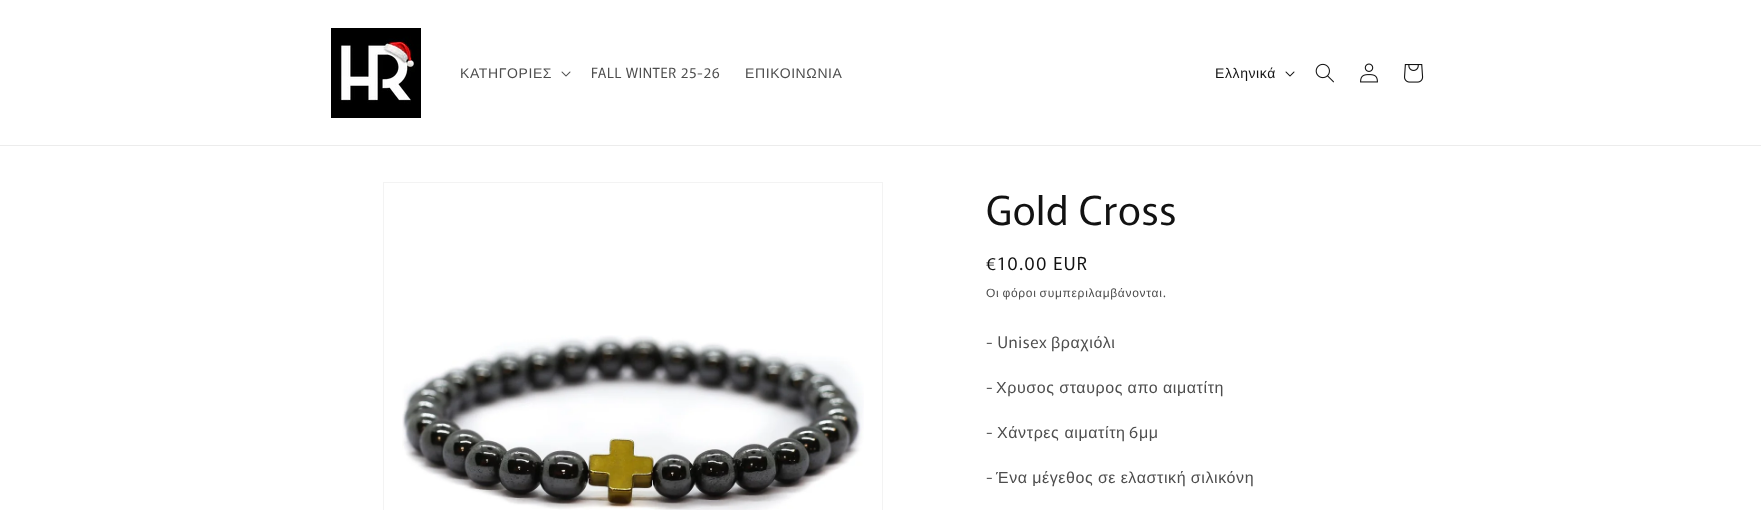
async function draw(canvas) {
  canvas.width = 1761;
  canvas.height = 510;
  const ctx = canvas.getContext('2d');
  ctx.miterLimit = 4;
  ctx.fontKerning = 'normal';
  function label(s, x, y, font, color) {
    ctx.font = font;
    ctx.fillStyle = color;
    ctx.fillText(s, x, y);
  }
  function rect(x, y, w, h, color) {
    ctx.fillStyle = color;
    ctx.fillRect(x, y, w, h);
  }
  async function image(src, x, y, w, h) {
    const img = new Image();
    img.src = src;
    await img.decode();
    ctx.drawImage(img, x, y, w, h);
  }

  rect(0, 0, 1761, 510, '#fff');
  rect(0, 145, 1761, 1, '#ececec');
  await image('assets/img1.png', 331, 28, 90, 90);
  ctx.letterSpacing = '0.6px';
  label('ΚΑΤΗΓΟΡΙΕΣ', 460, 78, '14px Liberation Sans', '#4d4d4d');
  await image('assets/img2.png', 561, 71, 10, 6);
  label('FALL WINTER 25-26', 591, 78, '14px Murecho', '#4d4d4d');
  label('ΕΠΙΚΟΙΝΩΝΙΑ', 745, 78, '14px Liberation Sans', '#4d4d4d');
  label('Ελληνικά', 1215, 78, '14px Liberation Sans', '#121212');
  await image('assets/img3.png', 1285, 71, 10, 6);
  await image('assets/img4.png', 1315, 63, 19, 20);
  await image('assets/img5.png', 1360, 63, 18, 20);
  await image('assets/img6.png', 1404, 64, 20, 19);
  ctx.strokeStyle = '#f3f3f3';
  ctx.strokeRect(383.5, 182.5, 499, 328);
  await image('assets/img7.png', 402, 335, 462, 175);
  label('Gold Cross', 986, 225, '40px Murecho', '#121212');
  ctx.letterSpacing = '1.25px';
  label('€10.00 EUR', 986, 270, '18px Murecho', '#121212');
  ctx.letterSpacing = '0.7px';
  ctx.wordSpacing = '-1px';
  label('Οι φόροι συμπεριλαμβάνονται', 986, 297, '12px Liberation Sans', '#4d4d4d');
  ctx.wordSpacing = '0px';
  label('.', 1163, 297, '12px Murecho', '#4d4d4d');
  ctx.letterSpacing = '0.6px';
  label('- Unisex', 986, 348, '16px Murecho', '#4d4d4d');
  label('βραχιόλι', 1051, 348, '16px Liberation Sans', '#4d4d4d');
  label('-', 986, 393, '16px Murecho', '#4d4d4d');
  ctx.wordSpacing = '-0.5px';
  label('Χρυσος σταυρος απο αιματίτη', 996, 393, '16px Liberation Sans', '#4d4d4d');
  ctx.wordSpacing = '0px';
  label('-', 986, 438, '16px Murecho', '#4d4d4d');
  label('Χάντρες αιματίτη', 997, 438, '16px Liberation Sans', '#4d4d4d');
  label('6', 1129, 438, '16px Murecho', '#4d4d4d');
  label('μμ', 1139, 438, '16px Liberation Sans', '#4d4d4d');
  label('-', 986, 483, '16px Murecho', '#4d4d4d');
  ctx.wordSpacing = '-0.5px';
  label('Ένα μέγεθος σε ελαστική σιλικόνη', 996, 483, '16px Liberation Sans', '#4d4d4d');
}

draw(document.querySelector('canvas'));
